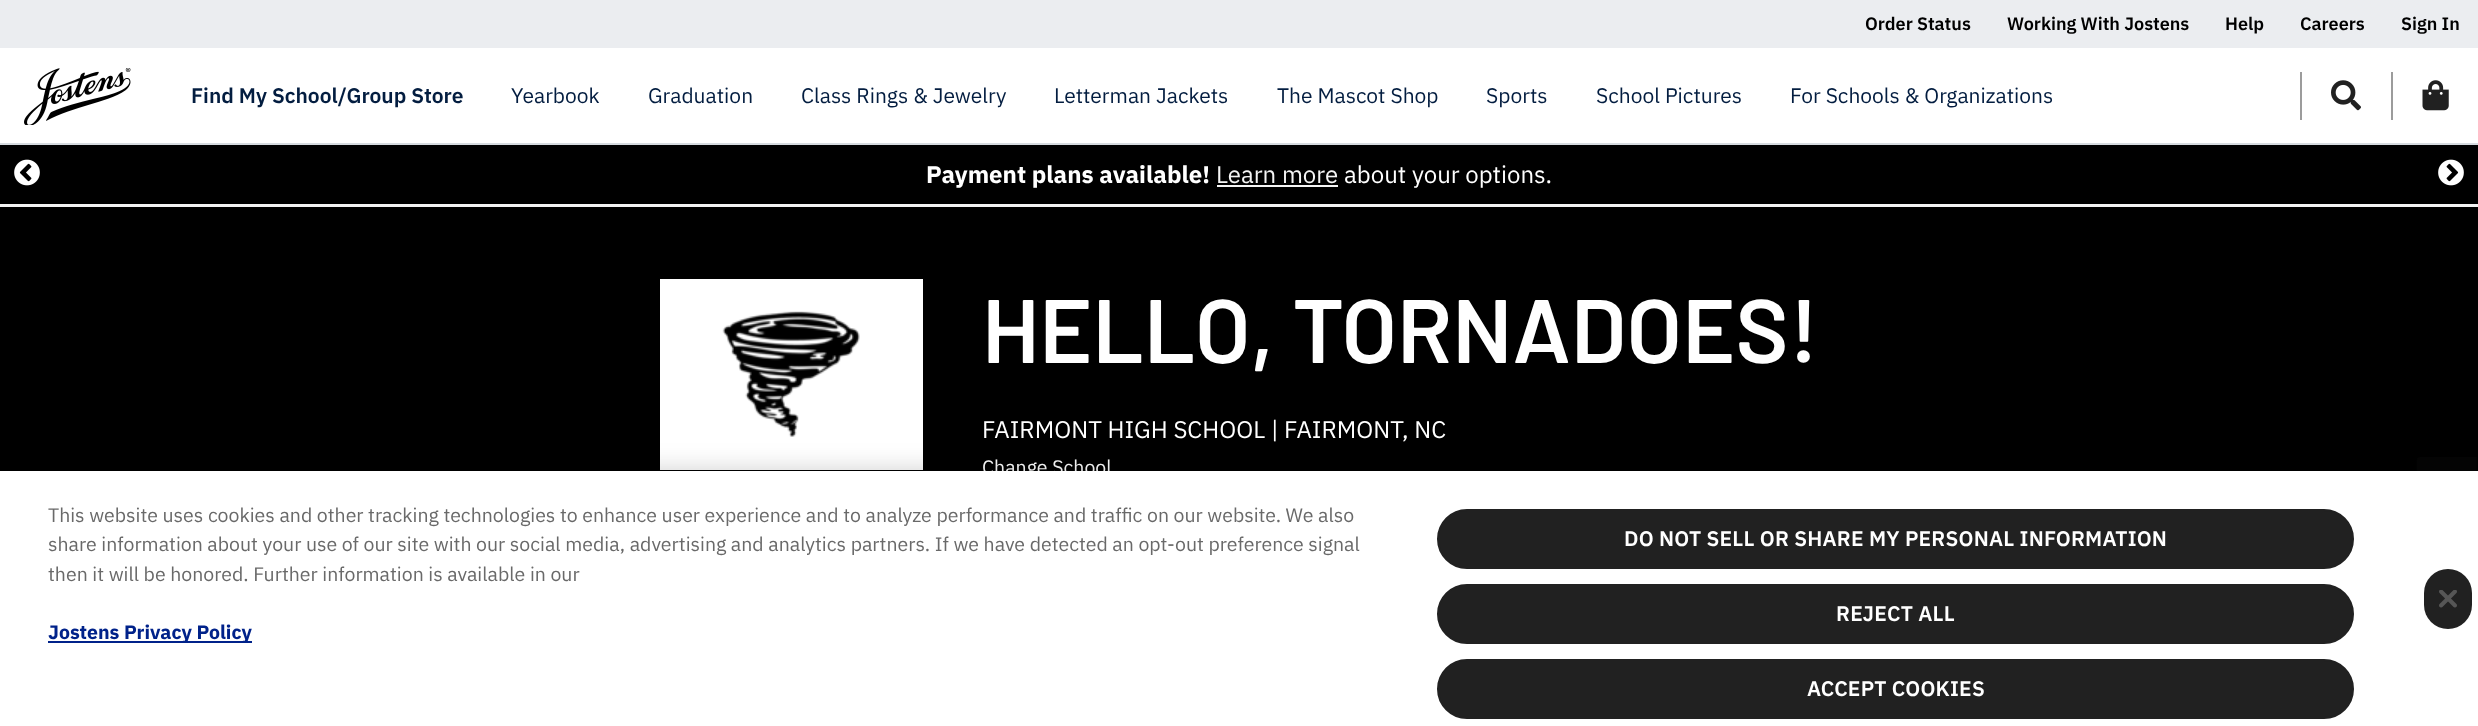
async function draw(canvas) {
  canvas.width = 2478;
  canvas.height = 726;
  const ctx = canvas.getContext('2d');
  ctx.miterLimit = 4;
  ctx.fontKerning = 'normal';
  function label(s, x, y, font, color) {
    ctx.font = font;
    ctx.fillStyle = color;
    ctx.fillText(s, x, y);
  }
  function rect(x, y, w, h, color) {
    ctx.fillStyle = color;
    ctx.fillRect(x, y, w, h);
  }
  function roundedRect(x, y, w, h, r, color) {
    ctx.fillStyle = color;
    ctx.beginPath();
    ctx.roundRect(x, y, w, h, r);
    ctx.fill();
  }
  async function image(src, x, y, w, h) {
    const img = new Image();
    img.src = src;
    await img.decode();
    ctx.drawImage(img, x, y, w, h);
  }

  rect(0, 0, 2478, 726, '#f2f2f2');
  rect(0, 0, 2478, 48, '#ebedf0');
  label('Order Status', 1865, 30, '600 18px IBM Plex Sans', '#000');
  label('Working With Jostens', 2007, 30, '600 18px IBM Plex Sans', '#000');
  label('Help', 2225, 30, '600 18px IBM Plex Sans', '#000');
  label('Careers', 2300, 30, '600 18px IBM Plex Sans', '#000');
  label('Sign In', 2401, 30, '600 18px IBM Plex Sans', '#000');
  rect(0, 48, 2478, 95, '#fff');
  rect(0, 143, 2478, 2, '#d6dbe0');
  await image('assets/img1.png', 24, 68, 107, 57);
  label('Find My School/Group Store', 191, 103, '600 21px IBM Plex Sans', '#031d40');
  label('Yearbook', 511, 103, '21px IBM Plex Sans', '#031d40');
  label('Graduation', 648, 103, '21px IBM Plex Sans', '#031d40');
  label('Class Rings & Jewelry', 801, 103, '21px IBM Plex Sans', '#031d40');
  label('Letterman Jackets', 1054, 103, '21px IBM Plex Sans', '#031d40');
  label('The Mascot Shop', 1277, 103, '21px IBM Plex Sans', '#031d40');
  label('Sports', 1486, 103, '21px IBM Plex Sans', '#031d40');
  label('School Pictures', 1596, 103, '21px IBM Plex Sans', '#031d40');
  label('For Schools & Organizations', 1790, 103, '21px IBM Plex Sans', '#031d40');
  rect(2300, 72, 2, 48, '#9c9c9c');
  await image('assets/img2.png', 2331, 80, 30, 31);
  rect(2391, 72, 2, 48, '#9c9c9c');
  await image('assets/img3.png', 2422, 80, 27, 31);
  rect(0, 145, 2478, 59, '#000');
  await image('assets/img4.png', 14, 159, 26, 27);
  label('Payment plans available!', 926, 183, 'bold 24px IBM Plex Sans', '#fff');
  label('Learn more', 1216, 183, '24px IBM Plex Sans', '#f5f5f5');
  rect(1217, 185, 121, 2, '#f5f5f5');
  label('about your options.', 1344, 183, '24px IBM Plex Sans', '#fff');
  await image('assets/img5.png', 2438, 159, 26, 27);
  rect(0, 207, 2478, 264, '#000');
  rect(660, 279, 263, 191, '#fff');
  await image('assets/img6.png', 722, 311, 138, 126);
  label('HELLO, TORNADOES!', 982, 363, '600 90px Barlow', '#fff');
  label('FAIRMONT HIGH SCHOOL | FAIRMONT, NC', 982, 438, '24px IBM Plex Sans', '#fff');
  label('Change School', 982, 474, '19.5px IBM Plex Sans', '#fff');
  await image('assets/img7.png', 2416, 457, 62, 14);
  ctx.fillStyle = '#00000033';
  ctx.filter = 'blur(13.5px)';
  ctx.beginPath();
  ctx.rect(0, 471, 2478, 255);
  ctx.fill();
  ctx.filter = 'none';
  rect(0, 471, 2478, 255, '#fff');
  label('This website uses cookies and other tracking technologies to enhance user experience and to analyze performance and traffic on our website. We also', 48, 522, '19.5px IBM Plex Sans', '#696969');
  label('share information about your use of our site with our social media, advertising and analytics partners. If we have detected an opt-out preference signal', 48, 551, '19.5px IBM Plex Sans', '#696969');
  label('then it will be honored. Further information is available in our', 48, 581, '19.5px IBM Plex Sans', '#696969');
  rect(48, 641, 204, 2, '#00228a');
  label('Jostens Privacy Policy', 48, 639, 'bold 19.5px IBM Plex Sans', '#00228a');
  ctx.fillStyle = '#212121';
  ctx.beginPath();
  ctx.roundRect(1438, 510, 915, 58, 29);
  ctx.fill();
  ctx.strokeStyle = '#212121';
  ctx.lineWidth = 2;
  ctx.stroke();
  ctx.letterSpacing = '0.2px';
  label('DO NOT SELL OR SHARE MY PERSONAL INFORMATION', 1624, 546, '600 21px IBM Plex Sans', '#fff');
  ctx.fillStyle = '#212121';
  ctx.beginPath();
  ctx.roundRect(1438, 585, 915, 58, 29);
  ctx.fill();
  ctx.stroke();
  label('REJECT ALL', 1836, 621, '600 21px IBM Plex Sans', '#fff');
  ctx.fillStyle = '#212121';
  ctx.beginPath();
  ctx.roundRect(1438, 660, 915, 58, 29);
  ctx.fill();
  ctx.stroke();
  label('ACCEPT COOKIES', 1807, 696, '600 21px IBM Plex Sans', '#fff');
  roundedRect(2424, 569, 48, 60, 24, '#212121');
  await image('assets/img8.png', 2439, 590, 18, 18);
}

draw(document.querySelector('canvas'));
